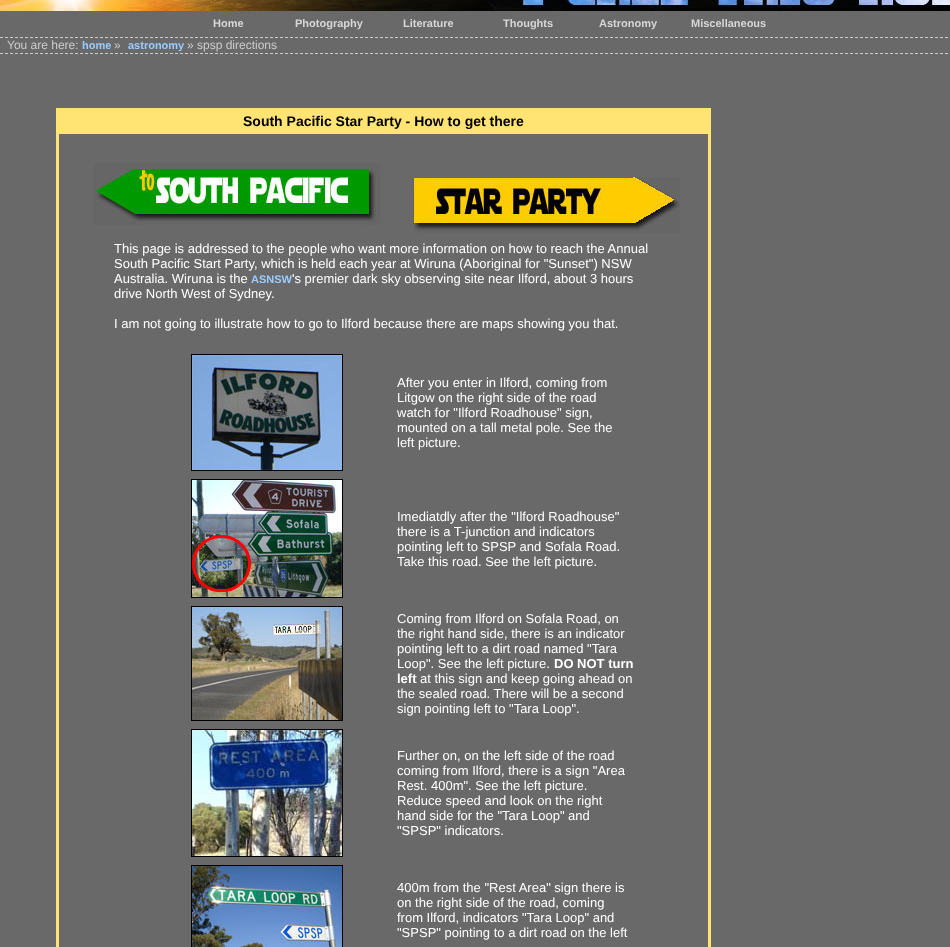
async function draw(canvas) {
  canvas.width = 950;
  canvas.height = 947;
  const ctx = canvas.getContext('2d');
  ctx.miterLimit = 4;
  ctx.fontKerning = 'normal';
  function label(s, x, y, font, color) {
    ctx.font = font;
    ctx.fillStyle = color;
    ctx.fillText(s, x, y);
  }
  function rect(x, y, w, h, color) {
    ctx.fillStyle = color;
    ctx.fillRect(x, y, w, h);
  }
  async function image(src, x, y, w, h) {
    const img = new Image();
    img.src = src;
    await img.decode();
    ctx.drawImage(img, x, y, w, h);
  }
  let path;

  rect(0, 0, 950, 947, '#696969');
  label('Home', 213, 27, 'bold 11px Liberation Sans', '#d7d7d7');
  label('Photography', 295, 27, 'bold 11px Liberation Sans', '#d7d7d7');
  label('Literature', 403, 27, 'bold 11px Liberation Sans', '#d7d7d7');
  label('Thoughts', 503, 27, 'bold 11px Liberation Sans', '#d7d7d7');
  label('Astronomy', 599, 27, 'bold 11px Liberation Sans', '#d7d7d7');
  label('Miscellaneous', 691, 27, 'bold 11px Liberation Sans', '#d7d7d7');
  await image('assets/img1.png', 0, 0, 950, 11);
  path = new Path2D('M0 37.5H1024');
  ctx.strokeStyle = '#ccc';
  ctx.setLineDash([3, 2]);
  ctx.stroke(path);
  path = new Path2D('M0 53.5H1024');
  ctx.stroke(path);
  label('You are here:', 7, 49, '12px Liberation Sans', '#ccc');
  label('home', 82, 49, 'bold 11px Liberation Sans', '#9cf');
  label('»', 114, 49, '12px Liberation Sans', '#ccc');
  label('astronomy', 128, 49, 'bold 11px Liberation Sans', '#9cf');
  label('» spsp directions', 187, 49, '12px Liberation Sans', '#ccc');
  rect(56, 108, 655, 26, '#ffe373');
  label('South Pacific Star Party - How to get there', 243, 126, 'bold 14px Liberation Sans', '#000');
  rect(708, 134, 3, 813, '#ffe373');
  rect(56, 134, 3, 813, '#ffe373');
  await image('assets/img2.png', 94, 163, 286, 62);
  await image('assets/img3.png', 413, 177, 267, 56);
  label('This page is addressed to the people who want more information on how to reach the Annual', 114, 253, '13px Liberation Sans', '#fff');
  label('South Pacific Start Party, which is held each year at Wiruna (Aboriginal for "Sunset") NSW', 114, 268, '13px Liberation Sans', '#fff');
  label('Australia. Wiruna is the', 114, 283, '13px Liberation Sans', '#fff');
  label('ASNSW', 251, 283, 'bold 11px Liberation Sans', '#9cf');
  label('\'s premier dark sky observing site near Ilford, about 3 hours', 292, 283, '13px Liberation Sans', '#fff');
  label('drive North West of Sydney.', 114, 298, '13px Liberation Sans', '#fff');
  label('I am not going to illustrate how to go to Ilford because there are maps showing you that.', 114, 328, '13px Liberation Sans', '#fff');
  ctx.strokeStyle = '#000';
  ctx.setLineDash([]);
  ctx.strokeRect(191.5, 354.5, 151, 116);
  await image('assets/img4.png', 192, 355, 150, 115);
  label('After you enter in Ilford, coming from', 397, 387, '13px Liberation Sans', '#fff');
  label('Litgow on the right side of the road', 397, 402, '13px Liberation Sans', '#fff');
  label('watch for "Ilford Roadhouse" sign,', 397, 417, '13px Liberation Sans', '#fff');
  label('mounted on a tall metal pole. See the', 397, 432, '13px Liberation Sans', '#fff');
  label('left picture.', 397, 447, '13px Liberation Sans', '#fff');
  ctx.strokeRect(191.5, 479.5, 151, 118);
  await image('assets/img5.png', 192, 480, 150, 117);
  label('Imediatdly after the "Ilford Roadhouse"', 397, 521, '13px Liberation Sans', '#fff');
  label('there is a T-junction and indicators', 397, 536, '13px Liberation Sans', '#fff');
  label('pointing left to SPSP and Sofala Road.', 397, 551, '13px Liberation Sans', '#fff');
  label('Take this road. See the left picture.', 397, 566, '13px Liberation Sans', '#fff');
  ctx.strokeRect(191.5, 606.5, 151, 114);
  await image('assets/img6.png', 192, 607, 150, 113);
  label('Coming from Ilford on Sofala Road, on', 397, 623, '13px Liberation Sans', '#fff');
  label('the right hand side, there is an indicator', 397, 638, '13px Liberation Sans', '#fff');
  label('pointing left to a dirt road named "Tara', 397, 653, '13px Liberation Sans', '#fff');
  label('Loop". See the left picture.', 397, 668, '13px Liberation Sans', '#fff');
  label('DO NOT turn', 554, 668, 'bold 13px Liberation Sans', '#fff');
  label('left', 397, 683, 'bold 13px Liberation Sans', '#fff');
  label('at this sign and keep going ahead on', 420, 683, '13px Liberation Sans', '#fff');
  label('the sealed road. There will be a second', 397, 698, '13px Liberation Sans', '#fff');
  label('sign pointing left to "Tara Loop".', 397, 713, '13px Liberation Sans', '#fff');
  ctx.strokeRect(191.5, 729.5, 151, 127);
  await image('assets/img7.png', 192, 730, 150, 126);
  label('Further on, on the left side of the road', 397, 760, '13px Liberation Sans', '#fff');
  label('coming from Ilford, there is a sign "Area', 397, 775, '13px Liberation Sans', '#fff');
  label('Rest. 400m". See the left picture.', 397, 790, '13px Liberation Sans', '#fff');
  label('Reduce speed and look on the right', 397, 805, '13px Liberation Sans', '#fff');
  label('hand side for the "Tara Loop" and', 397, 820, '13px Liberation Sans', '#fff');
  label('"SPSP" indicators.', 397, 835, '13px Liberation Sans', '#fff');
  ctx.strokeRect(191.5, 865.5, 151, 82);
  await image('assets/img8.png', 192, 866, 150, 81);
  label('400m from the "Rest Area" sign there is', 397, 892, '13px Liberation Sans', '#fff');
  label('on the right side of the road, coming', 397, 907, '13px Liberation Sans', '#fff');
  label('from Ilford, indicators "Tara Loop" and', 397, 922, '13px Liberation Sans', '#fff');
  label('"SPSP" pointing to a dirt road on the left', 397, 937, '13px Liberation Sans', '#fff');
}

draw(document.querySelector('canvas'));
